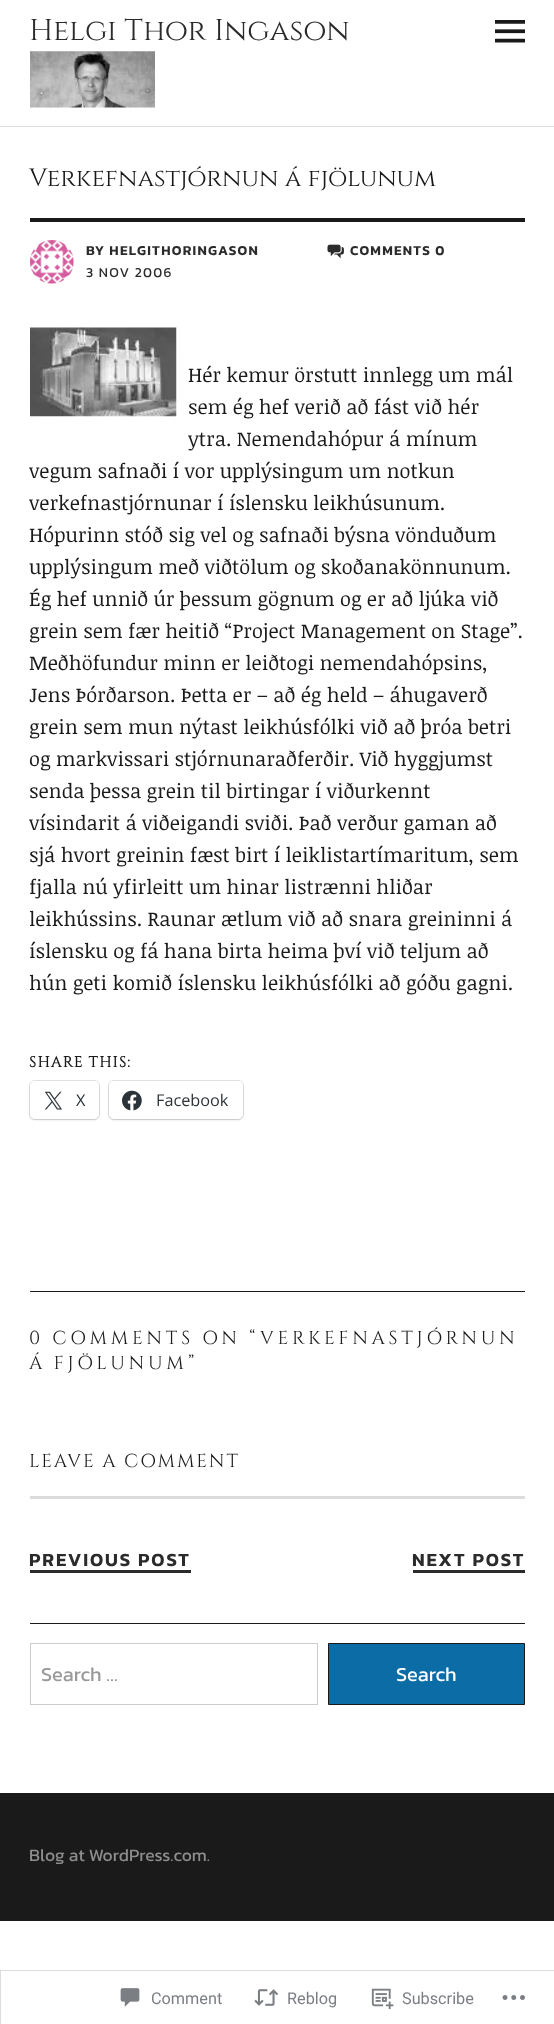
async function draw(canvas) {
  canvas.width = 554;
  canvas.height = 2024;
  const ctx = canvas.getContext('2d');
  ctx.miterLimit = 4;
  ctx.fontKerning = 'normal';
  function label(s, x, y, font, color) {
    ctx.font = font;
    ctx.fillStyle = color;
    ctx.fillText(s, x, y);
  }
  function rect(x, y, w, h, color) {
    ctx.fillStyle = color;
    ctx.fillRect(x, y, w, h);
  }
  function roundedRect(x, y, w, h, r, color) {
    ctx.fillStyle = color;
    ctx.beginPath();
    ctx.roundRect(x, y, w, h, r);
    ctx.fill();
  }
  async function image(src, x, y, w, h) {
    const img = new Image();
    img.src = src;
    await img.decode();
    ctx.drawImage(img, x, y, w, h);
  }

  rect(0, 0, 554, 2024, '#fff');
  rect(0, 126, 554, 1, '#ddd');
  label('Helgi Thor Ingason', 29, 40, '30px Cinzel', '#2b2b2b');
  await image('assets/img1.png', 495, 20, 30, 23);
  await image('assets/img2.png', 30, 51, 125, 57);
  label('Verkefnastjórnun á fjölunum', 29, 186, '25px Cinzel', '#1a1a1a');
  rect(30, 218, 495, 4, '#1a1a1a');
  await image('assets/img3.png', 30, 240, 44, 44);
  ctx.letterSpacing = '1.25px';
  label('BY HELGITHORINGASON', 86, 255, '600 13.75px Kanit', '#2b2b2b');
  label('3 NOV 2006', 86, 277, '13.75px Kanit', '#2b2b2b');
  await image('assets/img4.png', 327, 244, 17, 15);
  label('COMMENTS 0', 350, 255, '600 13.75px Kanit', '#2b2b2b');
  await image('assets/img5.png', 30, 327, 147, 90);
  ctx.letterSpacing = '0px';
  label('Hér kemur örstutt innlegg um mál', 188, 382, '20px Noticia Text', '#1a1a1a');
  label('sem ég hef verið að fást við hér', 188, 414, '20px Noticia Text', '#1a1a1a');
  label('ytra. Nemendahópur á mínum', 188, 446, '20px Noticia Text', '#1a1a1a');
  label('vegum safnaði í vor upplýsingum um notkun', 29, 478, '20px Noticia Text', '#1a1a1a');
  label('verkefnastjórnunar í íslensku leikhúsunum.', 29, 510, '20px Noticia Text', '#1a1a1a');
  label('Hópurinn stóð sig vel og safnaði býsna vönduðum', 29, 542, '20px Noticia Text', '#1a1a1a');
  label('upplýsingum með viðtölum og skoðanakönnunum.', 29, 574, '20px Noticia Text', '#1a1a1a');
  label('Ég hef unnið úr þessum gögnum og er að ljúka við', 29, 606, '20px Noticia Text', '#1a1a1a');
  label('grein sem fær heitið “Project Management on Stage”.', 29, 638, '20px Noticia Text', '#1a1a1a');
  label('Meðhöfundur minn er leiðtogi nemendahópsins,', 29, 670, '20px Noticia Text', '#1a1a1a');
  label('Jens Þórðarson. Þetta er – að ég held – áhugaverð', 29, 702, '20px Noticia Text', '#1a1a1a');
  label('grein sem mun nýtast leikhúsfólki við að þróa betri', 29, 734, '20px Noticia Text', '#1a1a1a');
  label('og markvissari stjórnunaraðferðir. Við hyggjumst', 29, 766, '20px Noticia Text', '#1a1a1a');
  label('senda þessa grein til birtingar í viðurkennt', 29, 798, '20px Noticia Text', '#1a1a1a');
  label('vísindarit á viðeigandi sviði. Það verður gaman að', 29, 830, '20px Noticia Text', '#1a1a1a');
  label('sjá hvort greinin fæst birt í leiklistartímaritum, sem', 29, 862, '20px Noticia Text', '#1a1a1a');
  label('fjalla nú yfirleitt um hinar listrænni hliðar', 29, 894, '20px Noticia Text', '#1a1a1a');
  label('leikhússins. Raunar ætlum við að snara greininni á', 29, 926, '20px Noticia Text', '#1a1a1a');
  label('íslensku og fá hana birta heima því við teljum að', 29, 958, '20px Noticia Text', '#1a1a1a');
  label('hún geti komið íslensku leikhúsfólki að góðu gagni.', 29, 990, '20px Noticia Text', '#1a1a1a');
  ctx.letterSpacing = '1.25px';
  label('SHARE THIS:', 29, 1067, 'bold 15px Cinzel', '#1a1a1a');
  ctx.beginPath();
  ctx.roundRect(29.5, 1080.5, 70, 39, 5.5);
  ctx.strokeStyle = '#e0e0e0';
  ctx.stroke();
  ctx.fillStyle = '#0000001f';
  ctx.filter = 'blur(1px)';
  ctx.beginPath();
  ctx.roundRect(30, 1083, 69, 37, 5);
  ctx.fill();
  ctx.filter = 'none';
  roundedRect(30, 1081, 69, 38, 5, '#fff');
  await image('assets/img6.png', 44, 1091, 18, 19);
  ctx.letterSpacing = '0px';
  label('X', 76, 1106, '16.25px Open Sans', '#2c3338');
  ctx.beginPath();
  ctx.roundRect(108.5, 1080.5, 135, 39, 5.5);
  ctx.stroke();
  ctx.fillStyle = '#0000001f';
  ctx.filter = 'blur(1px)';
  ctx.beginPath();
  ctx.roundRect(109, 1083, 134, 37, 5);
  ctx.fill();
  ctx.filter = 'none';
  roundedRect(109, 1081, 134, 38, 5, '#fff');
  await image('assets/img7.png', 122, 1090, 20, 21);
  label('Facebook', 156, 1106, '16.25px Open Sans', '#2c3338');
  rect(30, 1291, 495, 1, '#1a1a1a');
  ctx.letterSpacing = '3.75px';
  label('0 COMMENTS ON “', 29, 1344, '18.75px Cinzel', '#1a1a1a');
  label('VERKEFNASTJÓRNUN', 260, 1344, '18.75px Cinzel', '#1a1a1a');
  ctx.wordSpacing = '-1px';
  label('Á FJÖLUNUM', 29, 1369, '18.75px Cinzel', '#1a1a1a');
  ctx.wordSpacing = '0px';
  label('”', 188, 1369, '18.75px Cinzel', '#1a1a1a');
  ctx.letterSpacing = '1.9px';
  label('LEAVE A COMMENT', 29, 1467, '18.75px Cinzel', '#1a1a1a');
  rect(30, 1496, 495, 3, '#dcdcde');
  rect(30, 1570, 161, 3, '#2b2b2b');
  label('PREVIOUS POST', 29, 1566, '600 18.75px Kanit', '#2b2b2b');
  rect(413, 1570, 112, 3, '#2b2b2b');
  label('NEXT POST', 412, 1566, '600 18.75px Kanit', '#2b2b2b');
  rect(30, 1623, 495, 1, '#1a1a1a');
  ctx.strokeStyle = '#ccc';
  ctx.strokeRect(30.5, 1643.5, 287, 61);
  ctx.letterSpacing = '0px';
  label('Search …', 41, 1681, '20px Kanit', '#999');
  ctx.fillStyle = '#0c6ca6';
  ctx.beginPath();
  ctx.rect(328.5, 1643.5, 196, 61);
  ctx.fill();
  ctx.strokeStyle = '#1a1a1a';
  ctx.stroke();
  label('Search', 396, 1681, '20px Kanit', '#fff');
  rect(0, 1793, 554, 128, '#1a1a1a');
  label('Blog at WordPress.com.', 29, 1861, '17.5px Kanit', '#8d8d8d');
  ctx.strokeStyle = '#dddddf';
  ctx.strokeRect(0.5, 1970.5, 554, 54);
  await image('assets/img8.png', 120, 1988, 20, 19);
  label('Comment', 151, 2004, '16.25px Roboto', '#7b7f85');
  await image('assets/img9.png', 254, 1989, 25, 17);
  label('Reblog', 287, 2004, '16.25px Roboto', '#7b7f85');
  await image('assets/img10.png', 371, 1988, 23, 22);
  label('Subscribe', 402, 2004, '16.25px Roboto', '#7b7f85');
  await image('assets/img11.png', 502, 1995, 23, 5);
}

draw(document.querySelector('canvas'));
